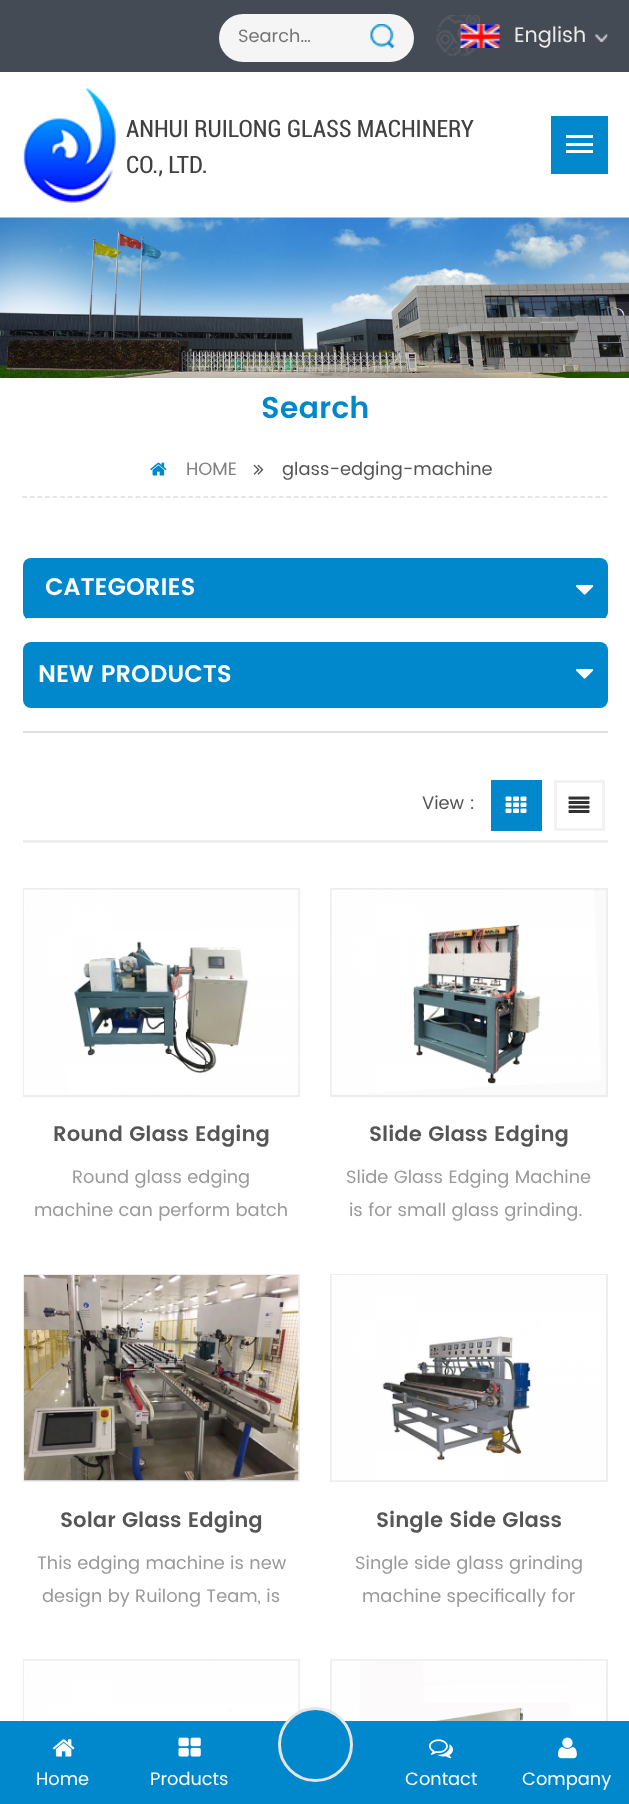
async function draw(canvas) {
  canvas.width = 629;
  canvas.height = 1804;
  const ctx = canvas.getContext('2d');
  ctx.miterLimit = 4;
  ctx.fontKerning = 'normal';
  function label(s, x, y, font, color) {
    ctx.font = font;
    ctx.fillStyle = color;
    ctx.fillText(s, x, y);
  }
  function rect(x, y, w, h, color) {
    ctx.fillStyle = color;
    ctx.fillRect(x, y, w, h);
  }
  function roundedRect(x, y, w, h, r, color) {
    ctx.fillStyle = color;
    ctx.beginPath();
    ctx.roundRect(x, y, w, h, r);
    ctx.fill();
  }
  async function image(src, x, y, w, h) {
    const img = new Image();
    img.src = src;
    await img.decode();
    ctx.drawImage(img, x, y, w, h);
  }
  let path;

  rect(0, 0, 629, 1804, '#fff');
  rect(0, 0, 629, 72, '#454b54');
  roundedRect(219, 14, 195, 48, 24, '#f5f5f5');
  label('Search…', 238, 42, '18px Poppins', '#757575');
  await image('assets/img1.png', 370, 24, 25, 25);
  await image('assets/img2.png', 436, 15, 44, 41);
  await image('assets/img3.png', 460, 24, 40, 24);
  label('English', 514, 42, '21px Poppins', '#eaeaea');
  await image('assets/img4.png', 595, 34, 13, 8);
  await image('assets/img5.png', 23, 87, 93, 116);
  label('ANHUI RUILONG GLASS MACHINERY', 126, 137, '24px Roboto', '#414141');
  label('CO., LTD.', 126, 173, '24px Roboto', '#414141');
  rect(551, 116, 57, 58, '#0188cc');
  rect(566, 135, 27, 3, '#fff');
  rect(566, 143, 27, 3, '#fff');
  rect(566, 150, 27, 3, '#fff');
  await image('assets/img6.png', 0, 217, 629, 161);
  path = new Path2D('M22.5 497H607.5');
  ctx.strokeStyle = '#ddd';
  ctx.lineWidth = 1.5;
  ctx.setLineDash([4.5, 3.04]);
  ctx.stroke(path);
  label('Search', 261, 418, '600 30px Poppins', '#0188cc');
  await image('assets/img7.png', 150, 462, 17, 14);
  label('HOME', 186, 475, '18px Poppins', '#808080');
  await image('assets/img8.png', 253, 464, 11, 11);
  label('glass-edging-machine', 282, 475, '18px Poppins', '#555');
  rect(23, 731, 585, 2, '#e0e0e0');
  roundedRect(23, 558, 585, 62, 8, '#0188cc');
  rect(27, 618, 578, 2, '#fff');
  label('CATEGORIES', 45, 595, '600 24px Poppins', '#fff');
  await image('assets/img9.png', 576, 585, 18, 10);
  roundedRect(23, 642, 585, 66, 8, '#0188cc');
  label('NEW PRODUCTS', 38, 682, '600 24px Poppins', '#fff');
  await image('assets/img9.png', 576, 669, 18, 10);
  rect(23, 840, 585, 3, '#eee');
  label('View :', 422, 809, '18px Poppins', '#555');
  rect(491, 780, 51, 51, '#0188cc');
  await image('assets/img10.png', 505, 796, 22, 17);
  ctx.strokeStyle = '#f2f2f2';
  ctx.lineWidth = 3;
  ctx.setLineDash([]);
  ctx.strokeRect(555.5, 781.5, 48, 48);
  await image('assets/img11.png', 568, 796, 22, 17);
  ctx.strokeStyle = '#eee';
  ctx.lineWidth = 2;
  ctx.strokeRect(24, 889, 275, 207);
  await image('assets/img12.png', 24, 889, 275, 206);
  label('Round Glass Edging', 53, 1141, '600 21px Poppins', '#555');
  label('Round glass edging', 72, 1183, '18px Poppins', '#999');
  label('machine can perform batch', 34, 1216, '18px Poppins', '#999');
  ctx.strokeRect(331, 889, 276, 207);
  await image('assets/img13.png', 331, 889, 275, 206);
  label('Slide Glass Edging', 369, 1141, '600 21px Poppins', '#555');
  label('Slide Glass Edging Machine', 346, 1183, '18px Poppins', '#999');
  label('is for small glass grinding.', 349, 1216, '18px Poppins', '#999');
  ctx.strokeRect(24, 1275, 275, 206);
  await image('assets/img14.png', 24, 1275, 275, 206);
  label('Solar Glass Edging', 60, 1527, '600 21px Poppins', '#555');
  label('This edging machine is new', 37, 1569, '18px Poppins', '#999');
  label('design by Ruilong Team, is', 42, 1602, '18px Poppins', '#999');
  ctx.strokeRect(331, 1275, 276, 206);
  await image('assets/img15.png', 331, 1275, 275, 206);
  label('Single Side Glass', 376, 1527, '600 21px Poppins', '#555');
  label('Single side glass grinding', 355, 1569, '18px Poppins', '#999');
  label('machine specifically for', 362, 1602, '18px Poppins', '#999');
  ctx.strokeRect(24, 1660, 275, 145);
  await image('assets/img16.png', 24, 1660, 275, 61);
  ctx.strokeRect(331, 1660, 276, 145);
  await image('assets/img17.png', 331, 1660, 275, 61);
  rect(0, 1721, 629, 83, '#0188cc');
  ctx.beginPath();
  ctx.arc(315.5, 1744.5, 36, 0, 2 * Math.PI);
  ctx.fill();
  ctx.strokeStyle = '#e5e5e5';
  ctx.lineWidth = 3;
  ctx.stroke();
  await image('assets/img18.png', 52, 1739, 23, 18);
  label('Home', 36, 1785, '18px Poppins', '#fff');
  await image('assets/img19.png', 178, 1737, 23, 20);
  label('Products', 150, 1785, '18px Poppins', '#fff');
  await image('assets/img20.png', 429, 1739, 24, 20);
  label('Contact', 405, 1785, '18px Poppins', '#fff');
  await image('assets/img21.png', 558, 1737, 19, 22);
  label('Company', 522, 1785, '18px Poppins', '#fff');
}

draw(document.querySelector('canvas'));
